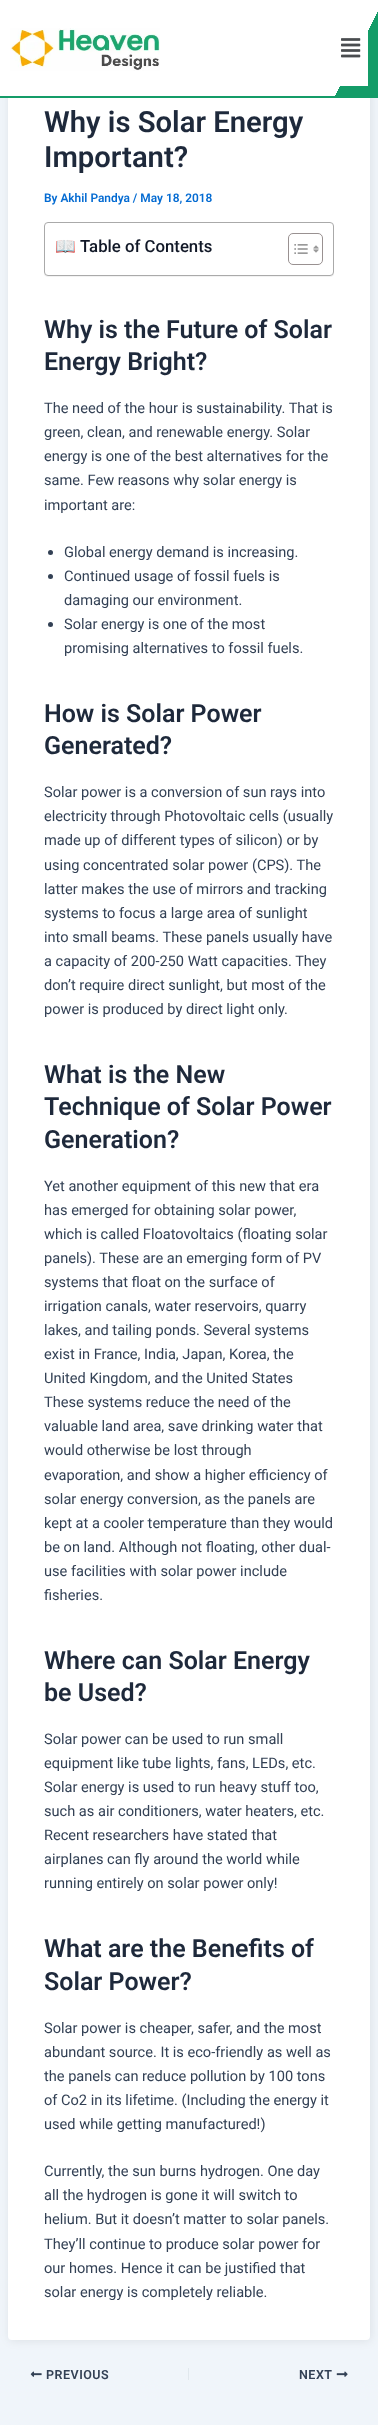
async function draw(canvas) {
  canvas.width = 378;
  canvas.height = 2425;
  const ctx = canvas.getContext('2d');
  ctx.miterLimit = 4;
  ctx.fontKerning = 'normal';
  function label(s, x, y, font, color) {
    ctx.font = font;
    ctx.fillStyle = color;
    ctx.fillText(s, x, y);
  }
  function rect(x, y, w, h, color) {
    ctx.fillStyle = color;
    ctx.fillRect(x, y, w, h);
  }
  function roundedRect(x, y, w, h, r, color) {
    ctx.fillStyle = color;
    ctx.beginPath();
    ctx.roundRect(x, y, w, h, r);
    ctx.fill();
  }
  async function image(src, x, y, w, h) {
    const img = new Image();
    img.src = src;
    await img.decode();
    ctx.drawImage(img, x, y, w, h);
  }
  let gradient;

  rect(0, 0, 378, 2425, '#f0f5fa');
  ctx.fillStyle = '#00000014';
  ctx.filter = 'blur(5px)';
  ctx.beginPath();
  ctx.roundRect(9, 70, 362, 2271, 4);
  ctx.fill();
  ctx.filter = 'none';
  roundedRect(8, 69, 362, 2271, 4, '#fff');
  rect(0, 96, 378, 2, '#149c68');
  gradient = ctx.createLinearGradient(20, -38, 358, 134);
  gradient.addColorStop(0.9, '#fff');
  gradient.addColorStop(0.9, '#149c68');
  ctx.fillStyle = gradient;
  ctx.fillRect(0, 0, 378, 96);
  await image('assets/img1.png', 10, 28, 150, 43);
  rect(340, 32, 28, 54, '#fff');
  await image('assets/img2.png', 341, 38, 20, 20);
  label('Why is Solar Energy', 44, 132, '600 29.25px Roboto', '#1e293b');
  label('Important?', 44, 167, '600 29.25px Roboto', '#1e293b');
  label('By Akhil Pandya / May 18, 2018', 44, 202, '600 11.9px Roboto', '#046bd2');
  ctx.fillStyle = '#0000000d';
  ctx.filter = 'blur(0.5px)';
  ctx.beginPath();
  ctx.roundRect(44, 223, 290, 54, 4);
  ctx.fill();
  ctx.filter = 'none';
  ctx.fillStyle = '#fff';
  ctx.beginPath();
  ctx.roundRect(44.5, 222.5, 289, 53, 3.5);
  ctx.fill();
  ctx.strokeStyle = '#aaa';
  ctx.stroke();
  label('📖', 55, 252, '16.75px Noto Color Emoji', '#111827');
  label('Table of Contents', 80, 252, '500 16.75px Roboto', '#111827');
  ctx.beginPath();
  ctx.roundRect(288.5, 233.5, 34, 31, 4.5);
  ctx.strokeStyle = '#999191';
  ctx.stroke();
  await image('assets/img3.png', 294, 244, 14, 10);
  await image('assets/img4.png', 313, 245, 6, 8);
  label('Why is the Future of Solar', 44, 338, '600 25px Roboto', '#1e293b');
  label('Energy Bright?', 44, 370, '600 25px Roboto', '#1e293b');
  label('The need of the hour is sustainability. That is', 44, 413, '14.6px Roboto', '#334155');
  label('green, clean, and renewable energy. Solar', 44, 437, '14.6px Roboto', '#334155');
  label('energy is one of the best alternatives for the', 44, 461, '14.6px Roboto', '#334155');
  label('same. Few reasons why solar energy is', 44, 485, '14.6px Roboto', '#334155');
  label('important are:', 44, 510, '14.6px Roboto', '#334155');
  ctx.beginPath();
  ctx.arc(50.5, 552.5, 2.5, 0, 2 * Math.PI);
  ctx.fill();
  label('Global energy demand is increasing.', 64, 557, '14.6px Roboto', '#334155');
  ctx.beginPath();
  ctx.arc(50.5, 576.5, 2.5, 0, 2 * Math.PI);
  ctx.fill();
  label('Continued usage of fossil fuels is', 64, 581, '14.6px Roboto', '#334155');
  label('damaging our environment.', 64, 605, '14.6px Roboto', '#334155');
  ctx.beginPath();
  ctx.arc(50.5, 624.5, 2.5, 0, 2 * Math.PI);
  ctx.fill();
  label('Solar energy is one of the most', 64, 629, '14.6px Roboto', '#334155');
  label('promising alternatives to fossil fuels.', 64, 653, '14.6px Roboto', '#334155');
  label('How is Solar Power', 44, 722, '600 25px Roboto', '#1e293b');
  label('Generated?', 44, 754, '600 25px Roboto', '#1e293b');
  label('Solar power is a conversion of sun rays into', 44, 797, '14.6px Roboto', '#334155');
  label('electricity through Photovoltaic cells (usually', 44, 821, '14.6px Roboto', '#334155');
  label('made up of different types of silicon) or by', 44, 845, '14.6px Roboto', '#334155');
  label('using concentrated solar power (CPS). The', 44, 870, '14.6px Roboto', '#334155');
  label('latter makes the use of mirrors and tracking', 44, 894, '14.6px Roboto', '#334155');
  label('systems to focus a large area of sunlight', 44, 918, '14.6px Roboto', '#334155');
  label('into small beams. These panels usually have', 44, 942, '14.6px Roboto', '#334155');
  label('a capacity of 200-250 Watt capacities. They', 44, 966, '14.6px Roboto', '#334155');
  label('don’t require direct sunlight, but most of the', 44, 990, '14.6px Roboto', '#334155');
  label('power is produced by direct light only.', 44, 1014, '14.6px Roboto', '#334155');
  label('What is the New', 44, 1083, '600 25px Roboto', '#1e293b');
  label('Technique of Solar Power', 44, 1115, '600 25px Roboto', '#1e293b');
  label('Generation?', 44, 1148, '600 25px Roboto', '#1e293b');
  label('Yet another equipment of this new that era', 44, 1191, '14.6px Roboto', '#334155');
  label('has emerged for obtaining solar power,', 44, 1215, '14.6px Roboto', '#334155');
  label('which is called Floatovoltaics (floating solar', 44, 1239, '14.6px Roboto', '#334155');
  label('panels). These are an emerging form of PV', 44, 1263, '14.6px Roboto', '#334155');
  label('systems that float on the surface of', 44, 1287, '14.6px Roboto', '#334155');
  label('irrigation canals, water reservoirs, quarry', 44, 1311, '14.6px Roboto', '#334155');
  label('lakes, and tailing ponds. Several systems', 44, 1335, '14.6px Roboto', '#334155');
  label('exist in France, India, Japan, Korea, the', 44, 1359, '14.6px Roboto', '#334155');
  label('United Kingdom, and the United States', 44, 1383, '14.6px Roboto', '#334155');
  label('These systems reduce the need of the', 44, 1407, '14.6px Roboto', '#334155');
  label('valuable land area, save drinking water that', 44, 1431, '14.6px Roboto', '#334155');
  label('would otherwise be lost through', 44, 1455, '14.6px Roboto', '#334155');
  label('evaporation, and show a higher efficiency of', 44, 1480, '14.6px Roboto', '#334155');
  label('solar energy conversion, as the panels are', 44, 1504, '14.6px Roboto', '#334155');
  label('kept at a cooler temperature than they would', 44, 1528, '14.6px Roboto', '#334155');
  label('be on land. Although not floating, other dual-', 44, 1552, '14.6px Roboto', '#334155');
  label('use facilities with solar power include', 44, 1576, '14.6px Roboto', '#334155');
  label('fisheries.', 44, 1600, '14.6px Roboto', '#334155');
  label('Where can Solar Energy', 44, 1669, '600 25px Roboto', '#1e293b');
  label('be Used?', 44, 1701, '600 25px Roboto', '#1e293b');
  label('Solar power can be used to run small', 44, 1744, '14.6px Roboto', '#334155');
  label('equipment like tube lights, fans, LEDs, etc.', 44, 1768, '14.6px Roboto', '#334155');
  label('Solar energy is used to run heavy stuff too,', 44, 1792, '14.6px Roboto', '#334155');
  label('such as air conditioners, water heaters, etc.', 44, 1816, '14.6px Roboto', '#334155');
  label('Recent researchers have stated that', 44, 1840, '14.6px Roboto', '#334155');
  label('airplanes can fly around the world while', 44, 1864, '14.6px Roboto', '#334155');
  label('running entirely on solar power only!', 44, 1888, '14.6px Roboto', '#334155');
  label('What are the Benefits of', 44, 1957, '600 25px Roboto', '#1e293b');
  label('Solar Power?', 44, 1990, '600 25px Roboto', '#1e293b');
  label('Solar power is cheaper, safer, and the most', 44, 2033, '14.6px Roboto', '#334155');
  label('abundant source. It is eco-friendly as well as', 44, 2057, '14.6px Roboto', '#334155');
  label('the panels can reduce pollution by 100 tons', 44, 2081, '14.6px Roboto', '#334155');
  label('of Co2 in its lifetime. (Including the energy it', 44, 2105, '14.6px Roboto', '#334155');
  label('used while getting manufactured!)', 44, 2129, '14.6px Roboto', '#334155');
  label('Currently, the sun burns hydrogen. One day', 44, 2176, '14.6px Roboto', '#334155');
  label('all the hydrogen is gone it will switch to', 44, 2200, '14.6px Roboto', '#334155');
  label('helium. But it doesn’t matter to solar panels.', 44, 2224, '14.6px Roboto', '#334155');
  label('They’ll continue to produce solar power for', 44, 2249, '14.6px Roboto', '#334155');
  label('our homes. Hence it can be justified that', 44, 2273, '14.6px Roboto', '#334155');
  label('solar energy is completely reliable.', 44, 2297, '14.6px Roboto', '#334155');
  await image('assets/img5.png', 30, 2371, 12, 6);
  ctx.letterSpacing = '0.5px';
  label('PREVIOUS', 46, 2379, '600 12.5px Roboto', '#334155');
  rect(188, 2368, 1, 12, '#e1e8ed');
  label('NEXT', 299, 2379, '600 12.5px Roboto', '#334155');
  await image('assets/img6.png', 336, 2371, 12, 6);
}

draw(document.querySelector('canvas'));
